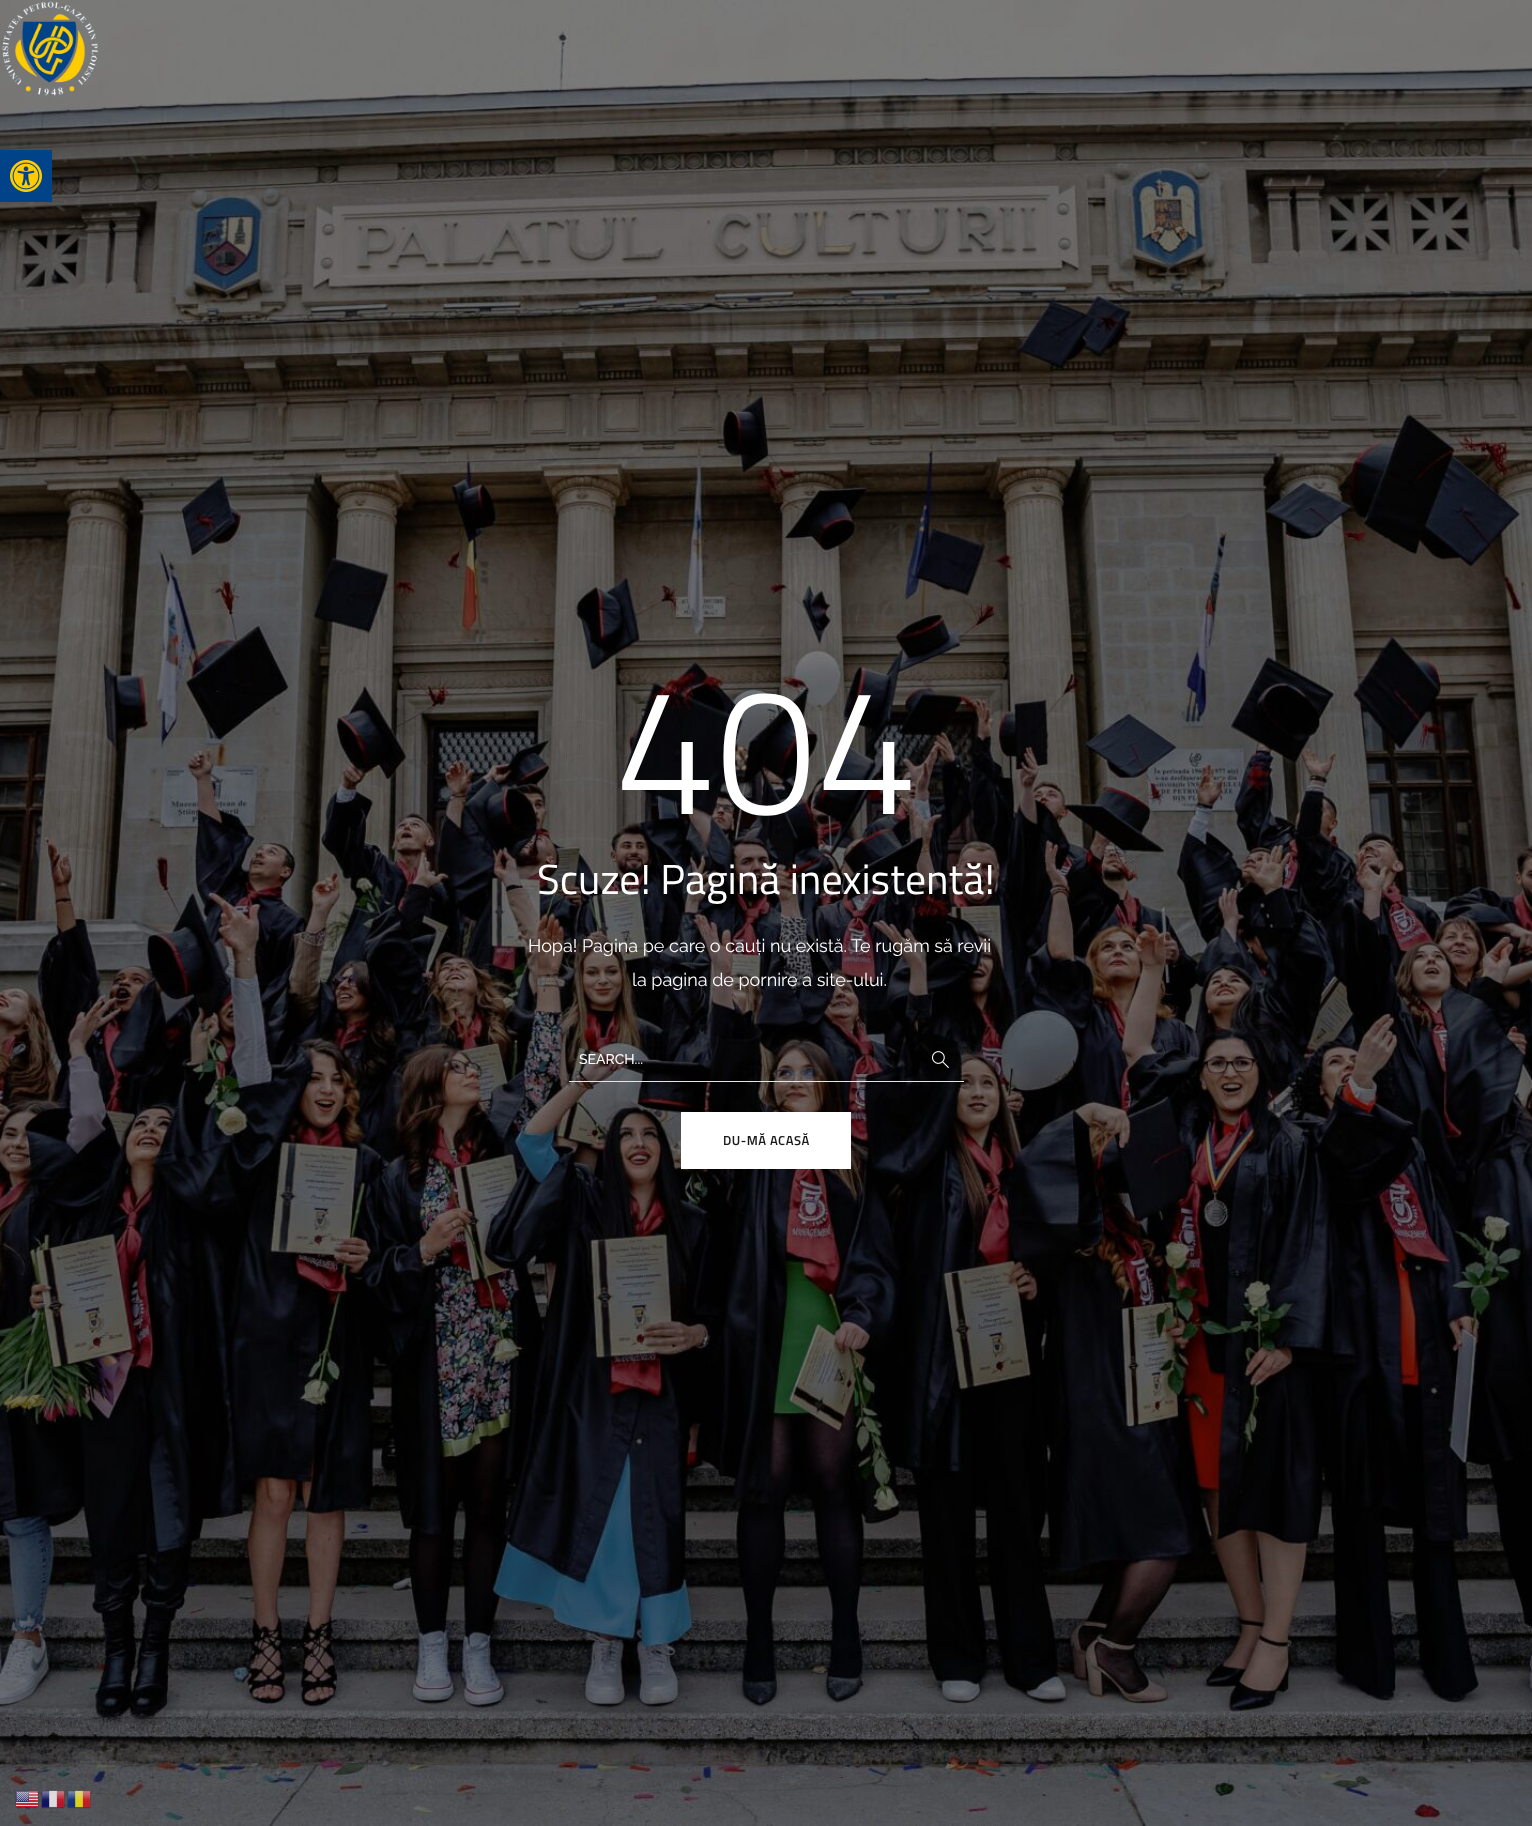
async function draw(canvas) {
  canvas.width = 1532;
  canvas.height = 1826;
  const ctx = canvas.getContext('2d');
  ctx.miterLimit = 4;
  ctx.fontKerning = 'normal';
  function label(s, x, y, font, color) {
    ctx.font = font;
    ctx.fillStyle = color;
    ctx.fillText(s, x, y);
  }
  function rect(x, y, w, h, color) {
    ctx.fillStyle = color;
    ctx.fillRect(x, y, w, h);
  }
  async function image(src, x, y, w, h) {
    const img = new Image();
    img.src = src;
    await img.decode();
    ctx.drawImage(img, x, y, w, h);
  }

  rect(0, 0, 1532, 1826, '#fff');
  await image('assets/img2.png', 0, 0, 1532, 1826);
  rect(0, 150, 52, 52, '#004389');
  await image('assets/img1.png', 10, 160, 32, 32);
  await image('assets/img3.png', 2, 1, 96, 95);
  label('404', 615, 814, '300 180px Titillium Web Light', '#fff');
  label('Scuze! Pagină inexistentă!', 537, 894, '42px Titillium Web', '#fff');
  label('Hopa! Pagina pe care o cauți nu există. Te rugăm să revii', 528, 952, '18px Raleway', '#fff');
  label('la pagina de pornire a site-ului.', 632, 986, '18px Raleway', '#fff');
  rect(569, 1081, 395, 1, '#e6e6e6');
  label('SEARCH...', 579, 1064, '500 14px Raleway', '#fff');
  await image('assets/img4.png', 932, 1051, 17, 17);
  rect(681, 1112, 170, 57, '#fff');
  ctx.letterSpacing = '0.5px';
  label('DU-MĂ ACASĂ', 723, 1145, '600 13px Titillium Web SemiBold', '#1a1a1a');
  await image('assets/img5.png', 15, 1790, 24, 19);
  await image('assets/img6.png', 41, 1790, 24, 19);
  await image('assets/img7.png', 67, 1790, 24, 19);
}

draw(document.querySelector('canvas'));
